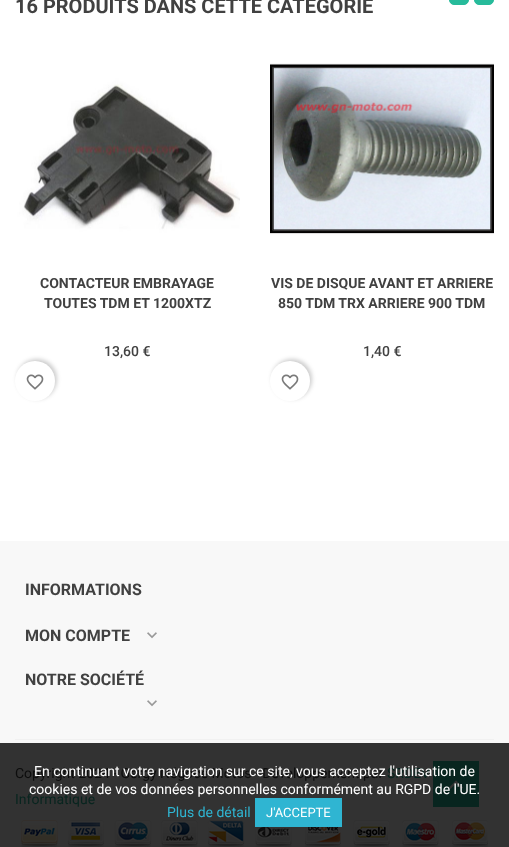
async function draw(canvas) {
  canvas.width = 509;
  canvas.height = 847;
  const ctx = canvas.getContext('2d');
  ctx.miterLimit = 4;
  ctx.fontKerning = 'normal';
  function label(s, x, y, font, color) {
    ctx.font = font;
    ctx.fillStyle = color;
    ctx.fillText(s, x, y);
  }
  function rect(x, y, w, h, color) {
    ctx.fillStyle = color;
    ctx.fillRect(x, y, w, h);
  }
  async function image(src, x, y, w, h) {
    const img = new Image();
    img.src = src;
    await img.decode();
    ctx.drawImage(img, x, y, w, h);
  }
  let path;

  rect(0, 0, 509, 847, '#fff');
  label('16 PRODUITS DANS CETTE CATÉGORIE', 15, 13, 'bold 20px Roboto', '#414141');
  ctx.fillStyle = '#27bb9b';
  ctx.beginPath();
  ctx.roundRect(449.5, -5.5, 19, 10, 4.5);
  ctx.fill();
  ctx.strokeStyle = '#27bb9b';
  ctx.stroke();
  ctx.beginPath();
  ctx.roundRect(474.5, -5.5, 19, 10, 4.5);
  ctx.fill();
  ctx.stroke();
  await image('assets/img1.png', 15, 37, 225, 224);
  label('CONTACTEUR EMBRAYAGE', 40, 288, 'bold 14px Roboto', '#414141');
  label('TOUTES TDM ET 1200XTZ', 44, 308, 'bold 14px Roboto', '#414141');
  label('13,60 €', 104, 356, '500 14px Roboto', '#414141');
  ctx.fillStyle = '#00000033';
  ctx.filter = 'blur(2px)';
  ctx.beginPath();
  ctx.roundRect(17, 359, 40, 40, 20);
  ctx.fill();
  ctx.filter = 'none';
  ctx.fillStyle = '#fff';
  ctx.beginPath();
  ctx.arc(35, 381, 20, 0, 2 * Math.PI);
  ctx.fill();
  await image('assets/img2.png', 26, 374, 18, 16);
  await image('assets/img3.png', 270, 37, 224, 224);
  label('VIS DE DISQUE AVANT ET ARRIERE', 271, 288, 'bold 14px Roboto', '#414141');
  label('850 TDM TRX ARRIERE 900 TDM', 278, 308, 'bold 14px Roboto', '#414141');
  label('1,40 €', 363, 356, '500 14px Roboto', '#414141');
  ctx.fillStyle = '#00000033';
  ctx.filter = 'blur(2px)';
  ctx.beginPath();
  ctx.roundRect(272, 359, 40, 40, 20);
  ctx.fill();
  ctx.filter = 'none';
  ctx.fillStyle = '#fff';
  ctx.beginPath();
  ctx.arc(290, 381, 20, 0, 2 * Math.PI);
  ctx.fill();
  await image('assets/img2.png', 281, 374, 18, 16);
  rect(0, 541, 509, 202, '#f8f8f8');
  rect(0, 743, 509, 104, '#323232');
  rect(15, 739, 479, 1, '#f1f1f1');
  label('INFORMATIONS', 25, 595, 'bold 16px Roboto', '#414141');
  label('MON COMPTE', 25, 641, 'bold 16px Roboto', '#414141');
  await image('assets/img4.png', 147, 632, 10, 7);
  label('NOTRE SOCIÉTÉ', 25, 685, 'bold 16px Roboto', '#414141');
  await image('assets/img4.png', 147, 700, 10, 7);
  label('Copyright 2024 - Gergy Négoce Motos - Développement par', 15, 778, '14px Roboto', '#0d0d0d');
  label('SRDEV', 387, 778, '14px Roboto', '#08251f');
  rect(433, 761, 46, 46, '#08251f');
  label('En continuant votre navigation sur ce site, vous acceptez l\'utilisation de', 34, 776, '14px Roboto', '#fff');
  ctx.fillStyle = '#333';
  path = new Path2D('M449 787.5L456 780.5L457.5 782L450.5 789Z');
  ctx.fill(path);
  path = new Path2D('M454.5 782L456 780.5L463 787.5L461.5 789Z');
  ctx.fill(path);
  label('cookies et de vos données personnelles conformément au RGPD de l\'UE.', 29, 794, '14px Roboto', '#fff');
  label('Plus de détail', 167, 817, '14px Roboto', '#2fb5d2');
  await image('assets/img5.png', 21, 820, 467, 27);
  rect(255, 798, 87, 29, '#2fb5d2');
  label('J\'ACCEPTE', 266, 817, '13px Roboto', '#fff');
  label('Informatique', 15, 804, '14px Roboto', '#08251f');
}

draw(document.querySelector('canvas'));
